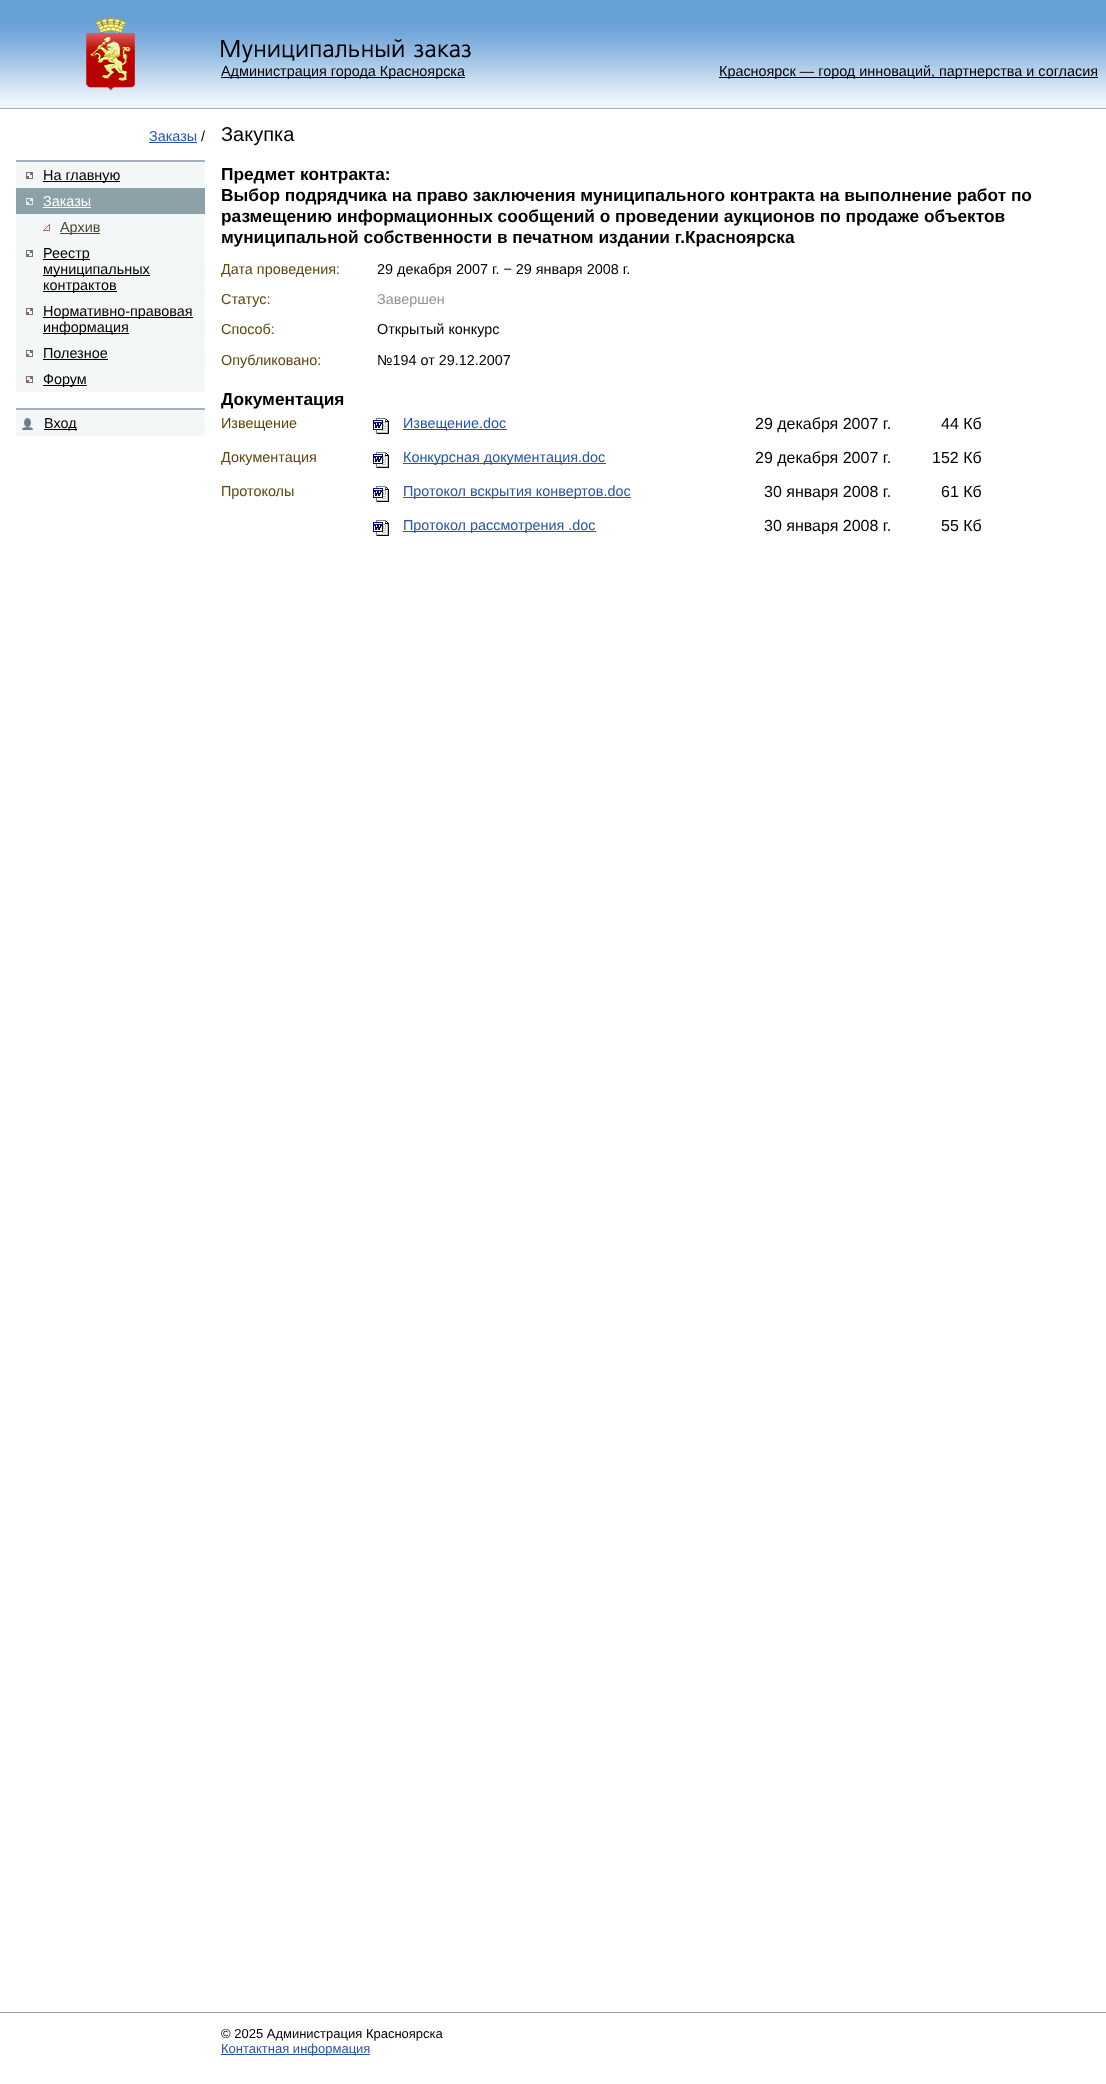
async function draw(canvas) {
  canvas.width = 1106;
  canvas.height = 2084;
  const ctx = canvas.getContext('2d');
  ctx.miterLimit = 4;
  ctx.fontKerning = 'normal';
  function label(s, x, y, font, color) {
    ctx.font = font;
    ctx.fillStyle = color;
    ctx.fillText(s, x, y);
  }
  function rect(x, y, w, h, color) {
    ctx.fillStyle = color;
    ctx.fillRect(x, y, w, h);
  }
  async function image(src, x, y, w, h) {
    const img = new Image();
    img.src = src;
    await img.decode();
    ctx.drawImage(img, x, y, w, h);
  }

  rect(0, 0, 1106, 2084, '#fff');
  await image('assets/img1.png', 0, 0, 1106, 108);
  rect(0, 108, 1106, 1, '#a4b0bd');
  await image('assets/img2.png', 86, 18, 49, 73);
  await image('assets/img3.png', 221, 39, 250, 24);
  rect(221, 77, 244, 1, '#000');
  label('Администрация города Красноярска', 221, 76, '14.4px Liberation Sans', '#000');
  rect(719, 77, 379, 1, '#000');
  label('Красноярск — город инноваций, партнерства и согласия', 719, 76, '14.4px Liberation Sans', '#000');
  label('Заказы', 149, 141, '14.4px Liberation Sans', '#2854ae');
  rect(149, 142, 48, 1, '#2854ae');
  label('/', 201, 141, '14.4px Liberation Sans', '#000');
  label('Закупка', 221, 141, '20px Liberation Sans', '#000');
  rect(16, 162, 189, 230, '#f3f7f8');
  rect(16, 160, 189, 2, '#a4b0bd');
  await image('assets/img4.png', 26, 172, 7, 7);
  rect(43, 181, 77, 1, '#000');
  label('На главную', 43, 180, '14.4px Liberation Sans', '#000');
  rect(16, 188, 189, 26, '#8ca1a8');
  await image('assets/img5.png', 26, 198, 7, 7);
  label('Заказы', 43, 206, '14.4px Liberation Sans', '#fff');
  rect(43, 207, 48, 1, '#fff');
  await image('assets/img6.png', 43, 224, 7, 7);
  rect(60, 233, 40, 1, '#4b4a2e');
  label('Архив', 60, 232, '14.4px Liberation Sans', '#4b4a2e');
  await image('assets/img4.png', 26, 250, 7, 7);
  rect(43, 259, 47, 1, '#000');
  label('Реестр', 43, 258, '14.4px Liberation Sans', '#000');
  rect(43, 275, 107, 1, '#000');
  label('муниципальных', 43, 274, '14.4px Liberation Sans', '#000');
  rect(43, 291, 74, 1, '#000');
  label('контрактов', 43, 290, '14.4px Liberation Sans', '#000');
  await image('assets/img4.png', 26, 308, 7, 7);
  rect(43, 317, 150, 1, '#000');
  label('Нормативно-правовая', 43, 316, '14.4px Liberation Sans', '#000');
  rect(43, 333, 86, 1, '#000');
  label('информация', 43, 332, '14.4px Liberation Sans', '#000');
  await image('assets/img4.png', 26, 350, 7, 7);
  label('Полезное', 43, 358, '14.4px Liberation Sans', '#000');
  rect(43, 359, 65, 1, '#000');
  await image('assets/img4.png', 26, 376, 7, 7);
  rect(43, 385, 44, 1, '#000');
  label('Форум', 43, 384, '14.4px Liberation Sans', '#000');
  rect(16, 410, 189, 26, '#f3f7f8');
  rect(16, 408, 189, 2, '#a4b0bd');
  await image('assets/img7.png', 22, 418, 11, 12);
  rect(44, 429, 33, 1, '#000');
  label('Вход', 44, 428, '14.4px Liberation Sans', '#000');
  label('Предмет контракта:', 221, 180, 'bold 17.3px Liberation Sans', '#000');
  label('Выбор подрядчика на право заключения муниципального контракта на выполнение работ по', 221, 201, 'bold 17.3px Liberation Sans', '#000');
  label('размещению информационных сообщений о проведении аукционов по продаже объектов', 221, 222, 'bold 17.3px Liberation Sans', '#000');
  label('муниципальной собственности в печатном издании г.Красноярска', 221, 243, 'bold 17.3px Liberation Sans', '#000');
  label('Дата проведения:', 221, 274, '14.4px Liberation Sans', '#5f460c');
  label('29 декабря 2007 г. − 29 января 2008 г.', 377, 274, '14.4px Liberation Sans', '#000');
  label('Статус:', 221, 304, '14.4px Liberation Sans', '#5f460c');
  label('Завершен', 377, 304, '14.4px Liberation Sans', '#949494');
  label('Способ:', 221, 334, '14.4px Liberation Sans', '#5f460c');
  label('Открытый конкурс', 377, 334, '14.4px Liberation Sans', '#000');
  label('Опубликовано:', 221, 365, '14.4px Liberation Sans', '#5f460c');
  label('№194 от 29.12.2007', 377, 365, '14.4px Liberation Sans', '#000');
  label('Документация', 221, 405, 'bold 17.3px Liberation Sans', '#000');
  label('Извещение', 221, 428, '14.4px Liberation Sans', '#5f460c');
  await image('assets/img8.png', 373, 418, 16, 16);
  rect(403, 429, 104, 1, '#2854ae');
  label('Извещение.doc', 403, 428, '14.4px Liberation Sans', '#2854ae');
  label('29 декабря 2007 г.', 755, 429, '16px Liberation Sans', '#000');
  label('44 Кб', 941, 429, '16px Liberation Sans', '#000');
  label('Документация', 221, 462, '14.4px Liberation Sans', '#5f460c');
  await image('assets/img8.png', 373, 452, 16, 16);
  rect(403, 463, 203, 1, '#2854ae');
  label('Конкурсная документация.doc', 403, 462, '14.4px Liberation Sans', '#2854ae');
  label('29 декабря 2007 г.', 755, 463, '16px Liberation Sans', '#000');
  label('152 Кб', 932, 463, '16px Liberation Sans', '#000');
  label('Протоколы', 221, 496, '14.4px Liberation Sans', '#5f460c');
  await image('assets/img8.png', 373, 486, 16, 16);
  rect(403, 497, 228, 1, '#2854ae');
  label('Протокол вскрытия конвертов.doc', 403, 496, '14.4px Liberation Sans', '#2854ae');
  label('30 января 2008 г.', 764, 497, '16px Liberation Sans', '#000');
  label('61 Кб', 941, 497, '16px Liberation Sans', '#000');
  await image('assets/img8.png', 373, 520, 16, 16);
  rect(403, 531, 193, 1, '#2854ae');
  label('Протокол рассмотрения .doc', 403, 530, '14.4px Liberation Sans', '#2854ae');
  label('30 января 2008 г.', 764, 531, '16px Liberation Sans', '#000');
  label('55 Кб', 941, 531, '16px Liberation Sans', '#000');
  rect(0, 2012, 1106, 1, '#a0a0a0');
  label('© 2025 Администрация Красноярска', 221, 2038, '13px Liberation Sans', '#000');
  rect(221, 2054, 149, 1, '#2854ae');
  label('Контактная информация', 221, 2053, '13px Liberation Sans', '#2854ae');
}

draw(document.querySelector('canvas'));
